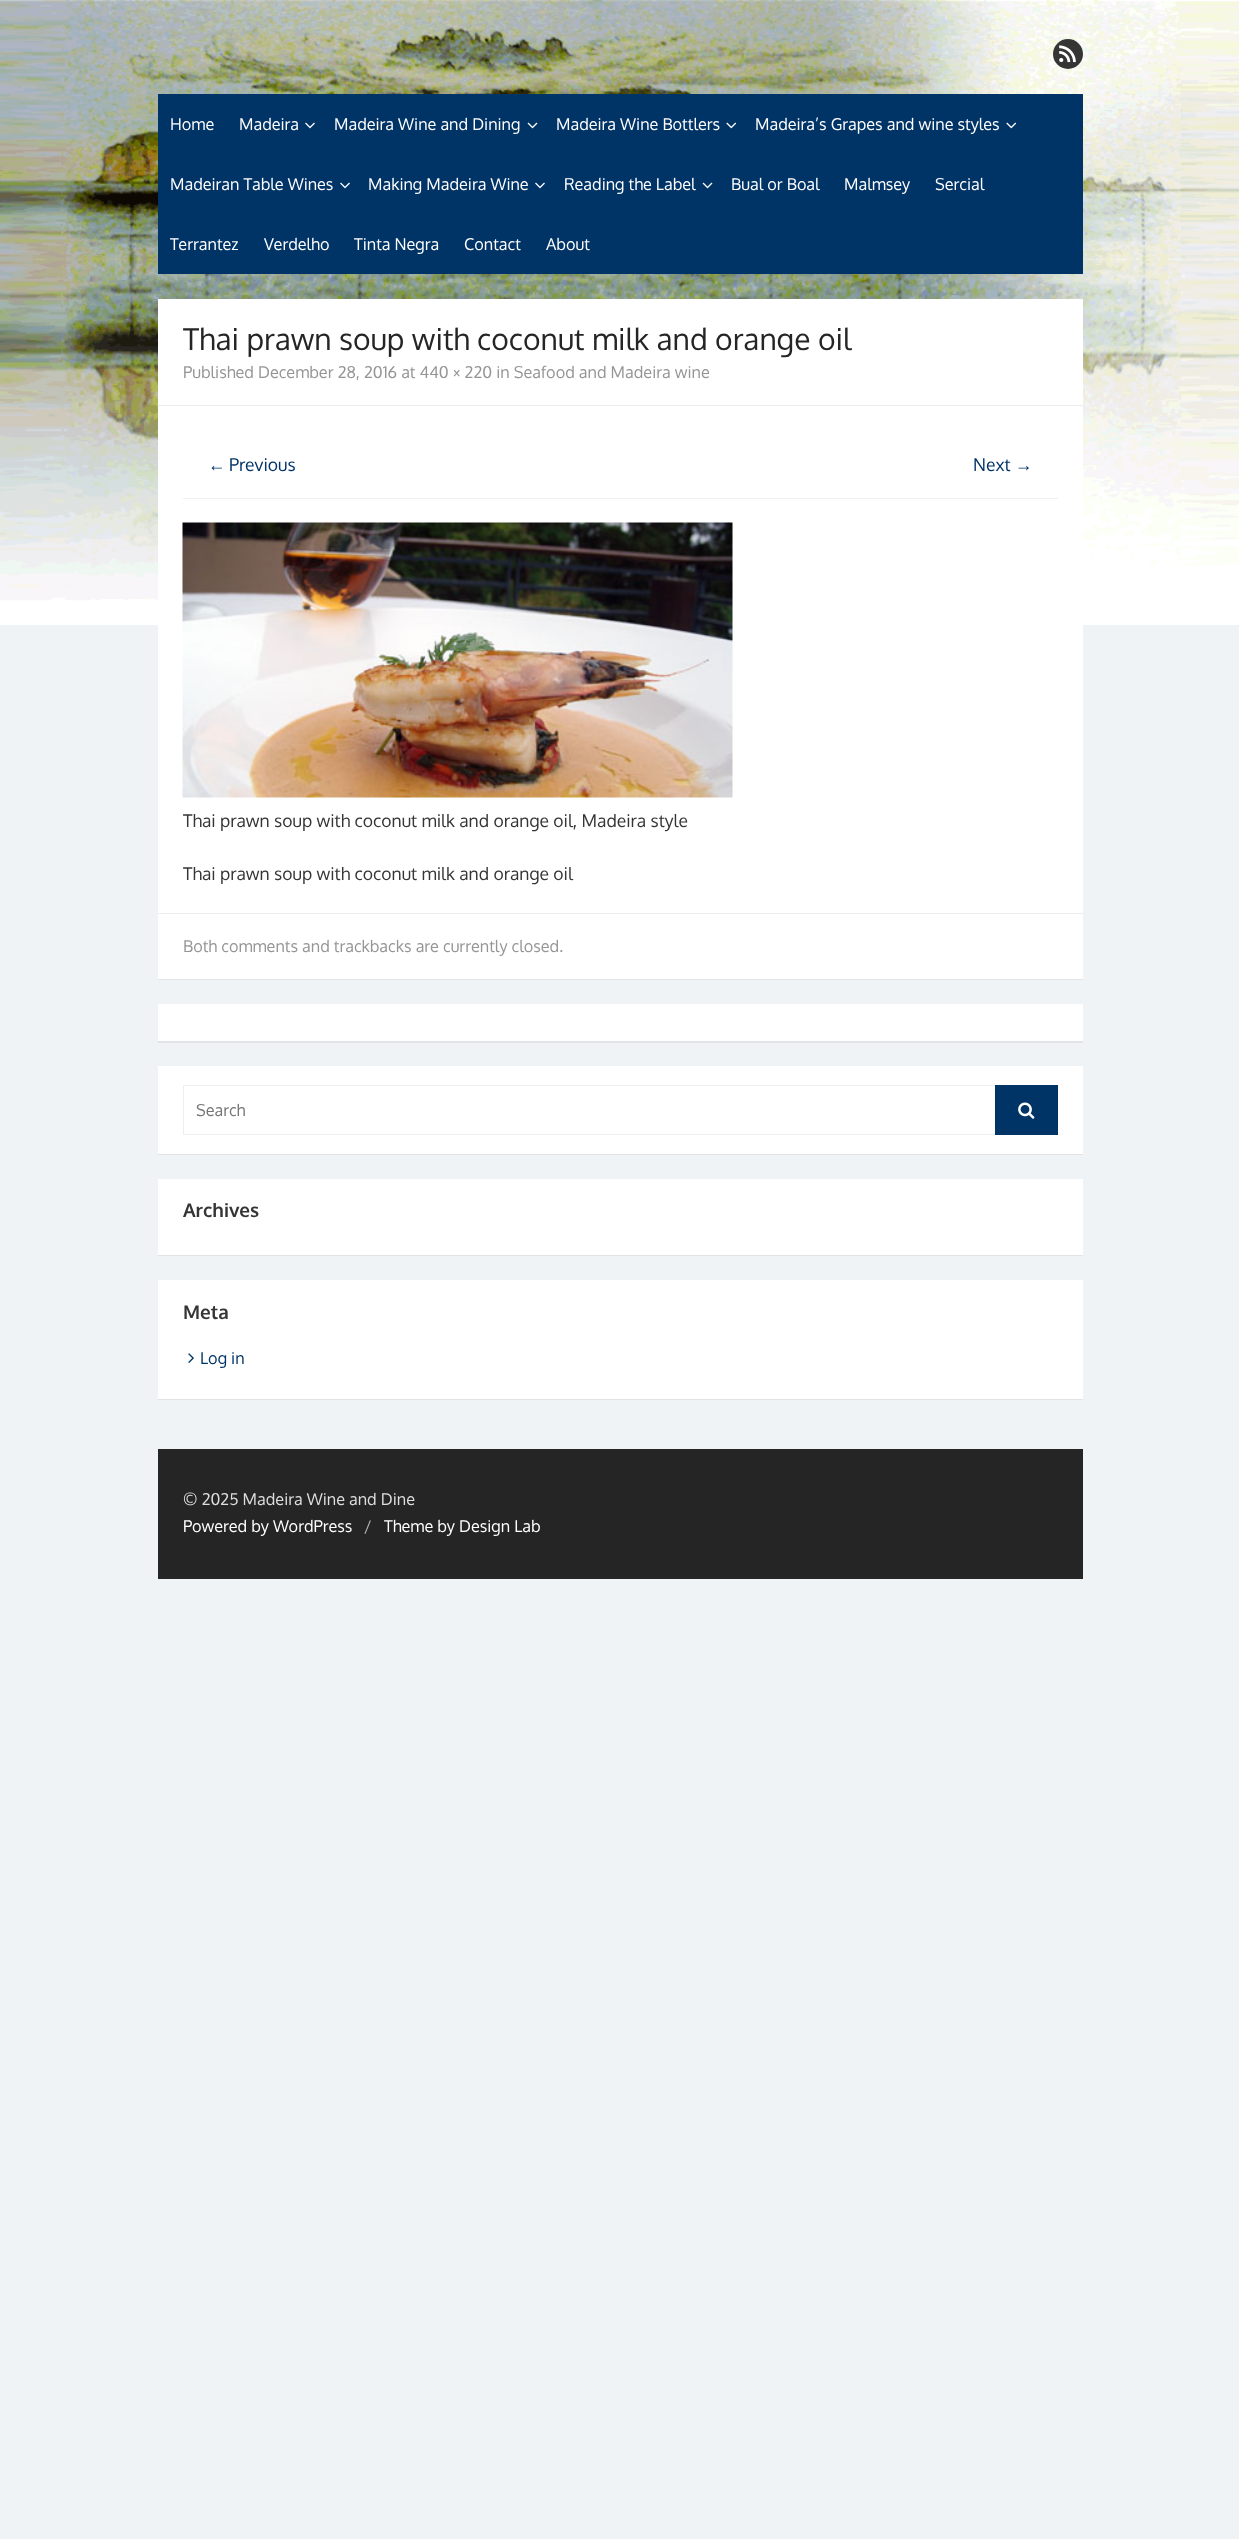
async function draw(canvas) {
  canvas.width = 1239;
  canvas.height = 2539;
  const ctx = canvas.getContext('2d');
  ctx.miterLimit = 4;
  ctx.fontKerning = 'normal';
  function label(s, x, y, font, color) {
    ctx.font = font;
    ctx.fillStyle = color;
    ctx.fillText(s, x, y);
  }
  function rect(x, y, w, h, color) {
    ctx.fillStyle = color;
    ctx.fillRect(x, y, w, h);
  }
  async function image(src, x, y, w, h) {
    const img = new Image();
    img.src = src;
    await img.decode();
    ctx.drawImage(img, x, y, w, h);
  }

  rect(0, 0, 1239, 2539, '#f0f3f5');
  await image('assets/img1.png', 0, 0, 1239, 625);
  ctx.fillStyle = '#353535';
  ctx.beginPath();
  ctx.arc(1068, 54, 15, 0, 2 * Math.PI);
  ctx.fill();
  await image('assets/img2.png', 1059, 45, 17, 18);
  rect(158, 94, 925, 180, '#036');
  label('Home', 170, 130, '16.25px Oxygen', '#fff');
  label('Madeira', 239, 130, '16.25px Oxygen', '#fff');
  await image('assets/img3.png', 305, 122, 10, 7);
  label('Madeira Wine and Dining', 334, 130, '16.25px Oxygen', '#fff');
  await image('assets/img4.png', 527, 122, 11, 7);
  label('Madeira Wine Bottlers', 556, 130, '16.25px Oxygen', '#fff');
  await image('assets/img5.png', 726, 122, 11, 7);
  label('Madeira’s Grapes and wine styles', 755, 130, '16.25px Oxygen', '#fff');
  await image('assets/img5.png', 1006, 122, 11, 7);
  label('Madeiran Table Wines', 170, 190, '16.25px Oxygen', '#fff');
  await image('assets/img3.png', 340, 182, 10, 7);
  label('Making Madeira Wine', 368, 190, '16.25px Oxygen', '#fff');
  await image('assets/img3.png', 535, 182, 10, 7);
  label('Reading the Label', 564, 190, '16.25px Oxygen', '#fff');
  await image('assets/img4.png', 702, 182, 11, 7);
  label('Bual or Boal', 731, 190, '16.25px Oxygen', '#fff');
  label('Malmsey', 844, 190, '16.25px Oxygen', '#fff');
  label('Sercial', 935, 190, '16.25px Oxygen', '#fff');
  label('Terrantez', 170, 250, '16.25px Oxygen', '#fff');
  label('Verdelho', 264, 250, '16.25px Oxygen', '#fff');
  label('Tinta Negra', 354, 250, '16.25px Oxygen', '#fff');
  label('Contact', 464, 250, '16.25px Oxygen', '#fff');
  label('About', 546, 250, '16.25px Oxygen', '#fff');
  ctx.fillStyle = '#0000000f';
  ctx.filter = 'blur(0.5px)';
  ctx.beginPath();
  ctx.rect(158, 300, 925, 680);
  ctx.fill();
  ctx.filter = 'none';
  rect(158, 299, 925, 680, '#fff');
  rect(158, 405, 925, 1, '#ededed');
  label('Thai prawn soup with coconut milk and orange oil', 183, 350, '30px Oxygen', '#252525');
  label('Published December 28, 2016 at 440 × 220 in Seafood and Madeira wine', 183, 378, '16.25px Oxygen', '#959595');
  ctx.fillStyle = '#0000000f';
  ctx.filter = 'blur(0.5px)';
  ctx.beginPath();
  ctx.rect(183, 433, 875, 66);
  ctx.fill();
  ctx.filter = 'none';
  rect(183, 433, 875, 65, '#fff');
  label('←', 208, 471, '17.5px Liberation Sans', '#036');
  label('Previous', 229, 471, '17.5px Oxygen', '#036');
  label('Next', 973, 471, '17.5px Oxygen', '#036');
  label('→', 1015, 471, '17.5px Liberation Sans', '#036');
  await image('assets/img6.png', 182, 522, 551, 276);
  label('Thai prawn soup with coconut milk and orange oil, Madeira style', 183, 827, '17.5px Oxygen', '#353535');
  label('Thai prawn soup with coconut milk and orange oil', 183, 880, '17.5px Oxygen', '#353535');
  rect(158, 913, 925, 1, '#ededed');
  label('Both comments and trackbacks are currently closed.', 183, 952, '16.25px Oxygen', '#959595');
  ctx.fillStyle = '#0000000f';
  ctx.filter = 'blur(0.5px)';
  ctx.beginPath();
  ctx.rect(158, 1005, 925, 38);
  ctx.fill();
  ctx.filter = 'none';
  rect(158, 1004, 925, 37, '#fff');
  ctx.fillStyle = '#0000000f';
  ctx.filter = 'blur(0.5px)';
  ctx.beginPath();
  ctx.rect(158, 1068, 925, 87);
  ctx.fill();
  ctx.filter = 'none';
  rect(158, 1066, 925, 88, '#fff');
  ctx.strokeStyle = '#eee';
  ctx.strokeRect(183.5, 1085.5, 874, 49);
  label('Search', 196, 1116, '16.25px Oxygen', '#757575');
  rect(995, 1085, 63, 50, '#036');
  await image('assets/img7.png', 1018, 1102, 17, 17);
  ctx.fillStyle = '#0000000f';
  ctx.filter = 'blur(0.5px)';
  ctx.beginPath();
  ctx.rect(158, 1180, 925, 76);
  ctx.fill();
  ctx.filter = 'none';
  rect(158, 1179, 925, 76, '#fff');
  label('Archives', 183, 1217, 'bold 19px Oxygen', '#353535');
  ctx.fillStyle = '#0000000f';
  ctx.filter = 'blur(0.5px)';
  ctx.beginPath();
  ctx.rect(158, 1281, 925, 119);
  ctx.fill();
  ctx.filter = 'none';
  rect(158, 1280, 925, 119, '#fff');
  label('Meta', 183, 1319, 'bold 19px Oxygen', '#353535');
  await image('assets/img8.png', 188, 1353, 6, 10);
  label('Log in', 200, 1364, '16.25px Oxygen', '#036');
  rect(158, 1449, 925, 130, '#252525');
  label('© 2025 Madeira Wine and Dine', 183, 1505, '16.25px Oxygen', '#dedede');
  label('Powered by WordPress', 183, 1532, '16.25px Oxygen', '#fff');
  label('/', 364, 1532, '16.25px Oxygen', '#b5b5b5');
  label('Theme by Design Lab', 384, 1532, '16.25px Oxygen', '#fff');
}

draw(document.querySelector('canvas'));
